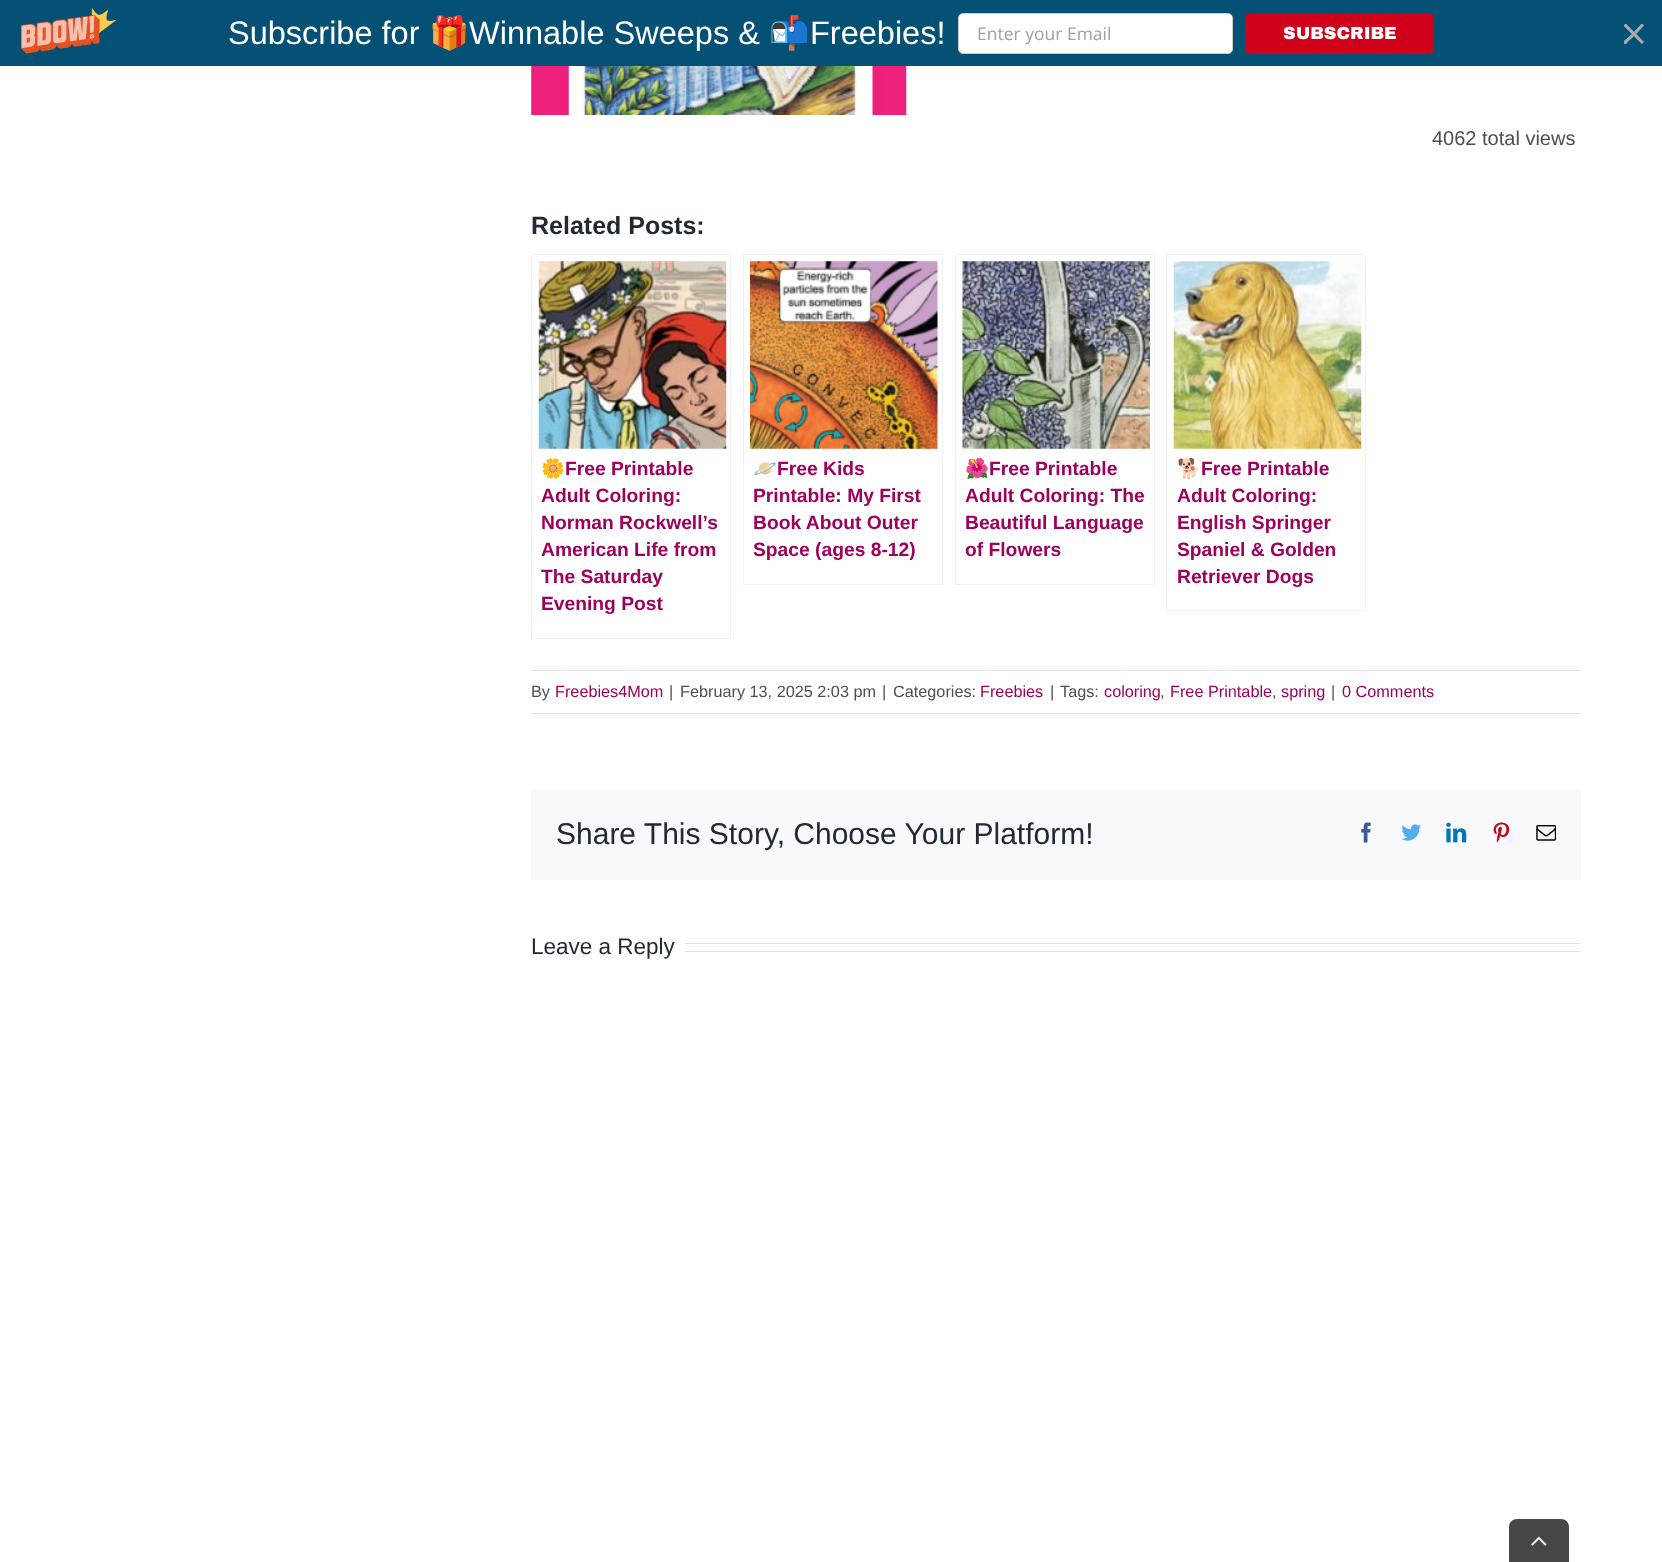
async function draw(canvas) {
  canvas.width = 1662;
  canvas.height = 1562;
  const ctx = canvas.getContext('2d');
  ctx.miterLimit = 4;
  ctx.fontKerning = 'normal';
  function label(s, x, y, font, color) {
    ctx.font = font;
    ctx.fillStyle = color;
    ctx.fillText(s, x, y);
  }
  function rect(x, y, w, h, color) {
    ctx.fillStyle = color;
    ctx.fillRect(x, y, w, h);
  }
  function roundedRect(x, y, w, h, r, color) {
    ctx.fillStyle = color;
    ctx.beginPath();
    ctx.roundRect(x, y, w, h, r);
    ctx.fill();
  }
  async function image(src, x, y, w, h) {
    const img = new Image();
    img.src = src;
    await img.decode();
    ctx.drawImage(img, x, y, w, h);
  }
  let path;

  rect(0, 0, 1662, 1562, '#fff');
  rect(0, 0, 1662, 66, '#055075');
  await image('assets/img1.png', 20, 7, 97, 47);
  label('Subscribe for', 228, 44, '32.5px Liberation Sans', '#fff');
  label('🎁', 429, 44, '32.5px Noto Color Emoji', '#fff');
  label('Winnable Sweeps &', 469, 44, '32.5px Liberation Sans', '#fff');
  label('📬', 769, 44, '32.5px Noto Color Emoji', '#fff');
  label('Freebies!', 810, 44, '32.5px Liberation Sans', '#fff');
  ctx.beginPath();
  ctx.roundRect(958.5, 13.5, 274, 40, 4.5);
  ctx.fill();
  ctx.strokeStyle = '#ccc';
  ctx.stroke();
  label('Enter your Email', 977, 40, '17.5px Open Sans', '#9ea0a4');
  roundedRect(1245, 13, 189, 41, 5, '#d0021b');
  label('SUBSCRIBE', 1283, 39, '900 17.5px Archivo Black', '#fff');
  ctx.save();
  ctx.beginPath();
  ctx.rect(1624, 24, 20, 20);
  ctx.clip();
  ctx.fillStyle = '#a4a9ac';
  path = new Path2D('M1634 32L1626 24C1625.5 23.5 1625 24 1624.5 24.5C1624 25 1624 25.5 1624 26L1632 34L1626.5 39C1626 39.5 1622 42 1624 43.5C1626 45 1628 41.5 1628.5 41L1634 36L1641.5 43.5C1642 43.5 1642.5 43.5 1643 43C1643.5 42.5 1643.5 42 1643.5 41.5L1636 34L1643.5 26C1644 24.5 1642.5 23.5 1641.5 24Z');
  ctx.fill(path);
  path = new Path2D('M1634 32L1641.5 24C1642 24 1642.5 24 1643 24.5C1643.5 25 1643.5 25.5 1643.5 26L1636 34L1643.5 41.5C1643.5 42 1643.5 42.5 1643 43C1642.5 43.5 1642 43.5 1641.5 43.5L1634 36L1628.5 41C1628 41.5 1625.5 45.5 1624 43.5C1622.5 41.5 1626 39.5 1626.5 39L1632 34L1624 26C1624 25.5 1624 25 1624.5 24.5C1625 24 1625.5 23.5 1626 24Z');
  ctx.fill(path);
  ctx.restore();
  await image('assets/img2.png', 531, 66, 376, 49);
  label('4062 total views', 1432, 145, '20px Liberation Sans', '#4a4e57');
  label('Related Posts:', 531, 234, 'bold 25px Liberation Sans', '#212934');
  ctx.strokeStyle = '#f2f2f2';
  ctx.strokeRect(531.5, 254.5, 199, 384);
  await image('assets/img3.png', 538, 261, 189, 188);
  label('🌼', 541, 475, 'bold 19.25px Noto Color Emoji', '#9e005d');
  label('Free Printable', 565, 475, 'bold 19.25px Liberation Sans', '#9e005d');
  label('Adult Coloring:', 541, 502, 'bold 19.25px Liberation Sans', '#9e005d');
  label('Norman Rockwell’s', 541, 529, 'bold 19.25px Liberation Sans', '#9e005d');
  label('American Life from', 541, 556, 'bold 19.25px Liberation Sans', '#9e005d');
  label('The Saturday', 541, 583, 'bold 19.25px Liberation Sans', '#9e005d');
  label('Evening Post', 541, 610, 'bold 19.25px Liberation Sans', '#9e005d');
  ctx.strokeRect(743.5, 254.5, 199, 330);
  await image('assets/img4.png', 750, 261, 188, 188);
  label('🪐', 753, 475, 'bold 19.25px Noto Color Emoji', '#9e005d');
  label('Free Kids', 777, 475, 'bold 19.25px Liberation Sans', '#9e005d');
  label('Printable: My First', 753, 502, 'bold 19.25px Liberation Sans', '#9e005d');
  label('Book About Outer', 753, 529, 'bold 19.25px Liberation Sans', '#9e005d');
  label('Space (ages 8-12)', 753, 556, 'bold 19.25px Liberation Sans', '#9e005d');
  ctx.strokeRect(955.5, 254.5, 199, 330);
  await image('assets/img5.png', 962, 261, 188, 188);
  ctx.save();
  ctx.beginPath();
  ctx.rect(965, 455, 188, 108);
  ctx.clip();
  label('🌺', 965, 475, 'bold 19.25px Noto Color Emoji', '#9e005d');
  ctx.restore();
  label('Free Printable', 989, 475, 'bold 19.25px Liberation Sans', '#9e005d');
  label('Adult Coloring: The', 965, 502, 'bold 19.25px Liberation Sans', '#9e005d');
  label('Beautiful Language', 965, 529, 'bold 19.25px Liberation Sans', '#9e005d');
  label('of Flowers', 965, 556, 'bold 19.25px Liberation Sans', '#9e005d');
  ctx.strokeRect(1166.5, 254.5, 199, 356);
  await image('assets/img6.png', 1173, 261, 189, 188);
  label('🐕', 1177, 475, 'bold 19.25px Noto Color Emoji', '#9e005d');
  label('Free Printable', 1201, 475, 'bold 19.25px Liberation Sans', '#9e005d');
  label('Adult Coloring:', 1177, 502, 'bold 19.25px Liberation Sans', '#9e005d');
  label('English Springer', 1177, 529, 'bold 19.25px Liberation Sans', '#9e005d');
  label('Spaniel & Golden', 1177, 556, 'bold 19.25px Liberation Sans', '#9e005d');
  label('Retriever Dogs', 1177, 583, 'bold 19.25px Liberation Sans', '#9e005d');
  rect(531, 670, 1050, 1, '#e2e2e2');
  rect(531, 713, 1050, 1, '#e2e2e2');
  label('By', 531, 697, '16.25px Liberation Sans', '#4a4e57');
  label('Freebies4Mom', 555, 697, '16.25px Liberation Sans', '#9e005d');
  label('|', 669, 697, '16.25px Liberation Sans', '#4a4e57');
  label('February 13, 2025 2:03 pm', 680, 697, '16.25px Liberation Sans', '#4a4e57');
  label('|', 882, 697, '16.25px Liberation Sans', '#4a4e57');
  label('Categories:', 893, 697, '16.25px Liberation Sans', '#4a4e57');
  label('Freebies', 980, 697, '16.25px Liberation Sans', '#9e005d');
  label('|', 1050, 697, '16.25px Liberation Sans', '#4a4e57');
  label('Tags:', 1060, 697, '16.25px Liberation Sans', '#4a4e57');
  label('coloring', 1104, 697, '16.25px Liberation Sans', '#9e005d');
  label(',', 1160, 697, '16.25px Liberation Sans', '#4a4e57');
  label('Free Printable', 1170, 697, '16.25px Liberation Sans', '#9e005d');
  label(',', 1272, 697, '16.25px Liberation Sans', '#4a4e57');
  label('spring', 1281, 697, '16.25px Liberation Sans', '#9e005d');
  label('|', 1331, 697, '16.25px Liberation Sans', '#4a4e57');
  label('0 Comments', 1342, 697, '16.25px Liberation Sans', '#9e005d');
  rect(531, 789, 1050, 91, '#f9f9fb');
  label('Share This Story, Choose Your Platform!', 556, 844, '30px Liberation Sans', '#212934');
  await image('assets/img7.png', 1361, 822, 10, 21);
  await image('assets/img8.png', 1401, 824, 21, 17);
  await image('assets/img9.png', 1446, 822, 21, 21);
  await image('assets/img10.png', 1493, 822, 17, 21);
  await image('assets/img11.png', 1536, 825, 20, 16);
  label('Leave a Reply', 531, 954, '22.5px Liberation Sans', '#212934');
  rect(685, 943, 896, 1, '#e2e2e2');
  rect(685, 951, 896, 1, '#e2e2e2');
  ctx.fillStyle = '#474747';
  path = new Path2D('M1517 1519H1561C1565.5 1519 1569 1522.5 1569 1527V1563H1509V1527C1509 1522.5 1512.5 1519 1517 1519Z');
  ctx.fill(path);
  await image('assets/img12.png', 1531, 1536, 16, 10);
}

draw(document.querySelector('canvas'));
